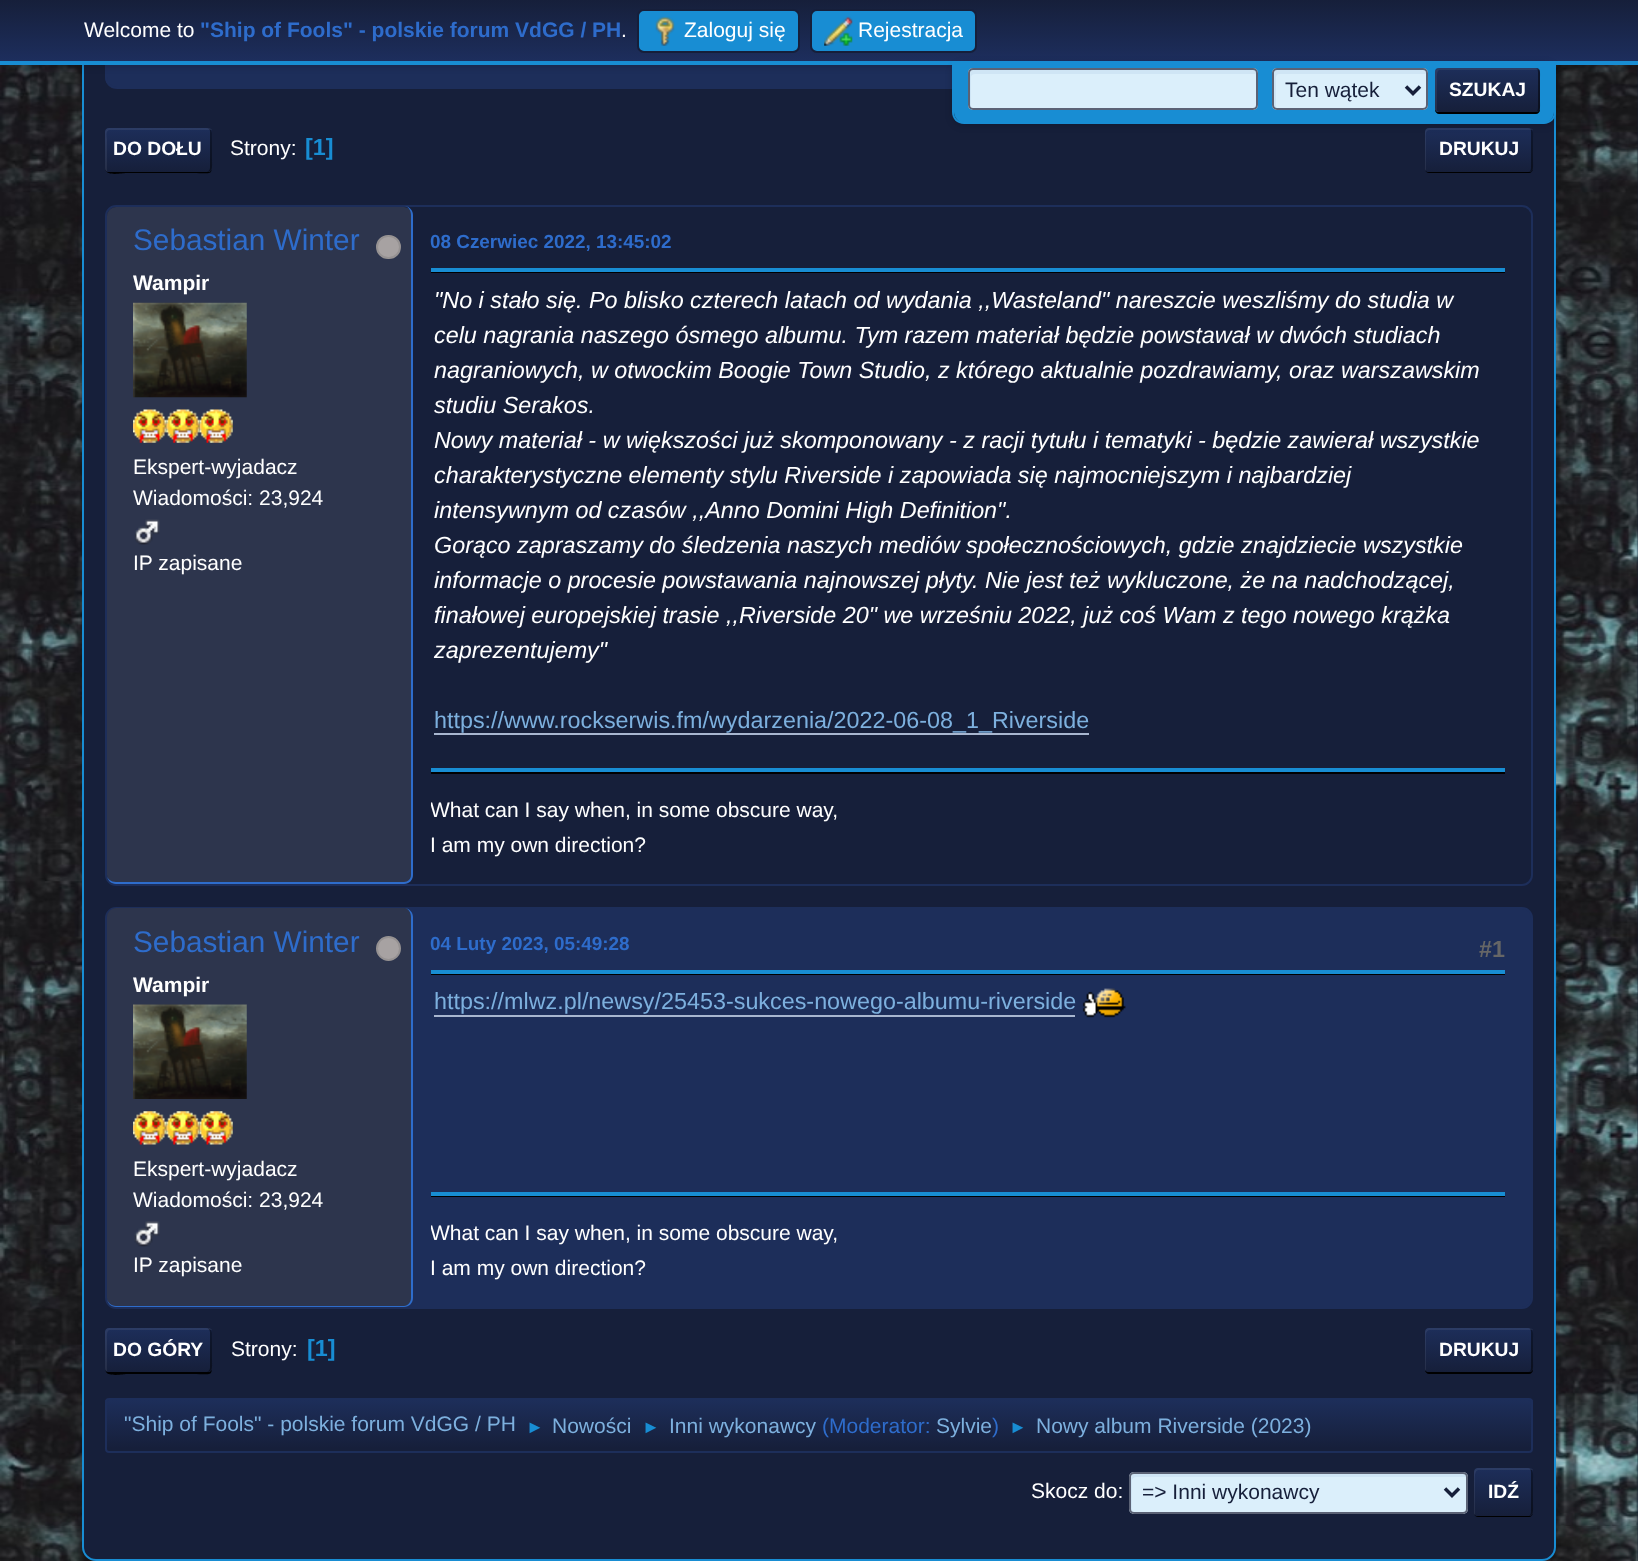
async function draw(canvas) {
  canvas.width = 1638;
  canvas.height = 1561;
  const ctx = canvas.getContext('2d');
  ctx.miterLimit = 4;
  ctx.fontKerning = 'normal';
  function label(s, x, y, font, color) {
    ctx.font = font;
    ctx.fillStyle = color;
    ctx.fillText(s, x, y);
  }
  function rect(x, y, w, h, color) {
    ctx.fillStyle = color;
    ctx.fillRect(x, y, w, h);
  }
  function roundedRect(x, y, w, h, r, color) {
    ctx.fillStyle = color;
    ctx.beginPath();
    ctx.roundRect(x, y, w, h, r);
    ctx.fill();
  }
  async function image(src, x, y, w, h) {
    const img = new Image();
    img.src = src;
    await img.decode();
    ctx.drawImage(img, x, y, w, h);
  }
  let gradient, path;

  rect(0, 0, 1638, 1561, '#161f3a');
  await image('assets/img1.png', 0, 65, 1638, 1496);
  ctx.fillStyle = '#00000024';
  ctx.filter = 'blur(2.5px)';
  ctx.beginPath();
  ctx.roundRect(82, -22, 1474, 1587, 14);
  ctx.fill();
  ctx.filter = 'none';
  ctx.fillStyle = '#161f3a';
  ctx.beginPath();
  ctx.roundRect(83, -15, 1472, 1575, 13);
  ctx.fill();
  ctx.strokeStyle = '#188dd3';
  ctx.lineWidth = 2;
  ctx.stroke();
  ctx.save();
  path = new Path2D('M105-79H1533V77C1533 83.5 1527.5 89 1521 89H117C110.5 89 105 83.5 105 77Z');
  ctx.clip(path);
  gradient = ctx.createLinearGradient(819, -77, 819, 88);
  gradient.addColorStop(0, '#161f3a');
  gradient.addColorStop(0.7, '#1d2e5a');
  ctx.fillStyle = gradient;
  ctx.fillRect(105, 65, 847, 23);
  ctx.restore();
  path = new Path2D('M106-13H1532V77C1532 83 1527 88 1521 88H117C111 88 106 83 106 77Z');
  ctx.strokeStyle = '#1d2e5a';
  ctx.stroke(path);
  ctx.fillStyle = '#00000029';
  ctx.filter = 'blur(3.5px)';
  ctx.beginPath();
  ctx.rect(0, 2, 1638, 65);
  ctx.fill();
  ctx.filter = 'none';
  gradient = ctx.createLinearGradient(819, 0, 819, 61);
  gradient.addColorStop(0, '#161f3a');
  gradient.addColorStop(1, '#1d2e5d');
  ctx.fillStyle = gradient;
  ctx.fillRect(0, 0, 1638, 61);
  rect(0, 61, 1638, 4, '#188dd3');
  label('Welcome to', 84, 37, '21px Liberation Sans', '#fff');
  label('"Ship of Fools" - polskie forum VdGG / PH', 200, 37, 'bold 21px Liberation Sans', '#2e6ccb');
  label('.', 621, 37, '21px Liberation Sans', '#fff');
  ctx.fillStyle = '#188dd3';
  ctx.beginPath();
  ctx.roundRect(638, 10, 161, 42, 6);
  ctx.fill();
  ctx.strokeStyle = '#161f3a';
  ctx.stroke();
  await image('assets/img2.png', 655, 16, 20, 30);
  label('Zaloguj się', 684, 37, '21px Liberation Sans', '#fff');
  ctx.fillStyle = '#188dd3';
  ctx.beginPath();
  ctx.roundRect(811, 10, 165, 42, 6);
  ctx.fill();
  ctx.stroke();
  await image('assets/img3.png', 824, 16, 29, 30);
  label('Rejestracja', 858, 37, '21px Liberation Sans', '#fff');
  ctx.fillStyle = '#000';
  path = new Path2D('M1425 170C1426 172 1427 173 1429 173H1529C1531 173 1533 171 1533 169V168C1533 170 1531 172 1530 172H1428C1427 172 1426 171 1425 170Z');
  ctx.fill(path);
  gradient = ctx.createLinearGradient(1479, 128, 1479, 172);
  gradient.addColorStop(0, '#1d2e5a');
  gradient.addColorStop(1, '#161f3a');
  ctx.fillStyle = gradient;
  ctx.beginPath();
  ctx.roundRect(1425, 128, 108, 44, 4);
  ctx.fill();
  ctx.fillStyle = '#00000078';
  path = new Path2D('M1528 172C1534 172 1533 167 1533 162V138C1533 133 1534 128 1528 128C1530 128 1531 129 1531 131V168C1531 170 1530 172 1528 172Z');
  ctx.fill(path);
  ctx.fillStyle = '#ffffff12';
  path = new Path2D('M1430 130H1533C1532 129 1531 128 1529 128H1429C1427 128 1425 130 1425 132V168C1425 169 1425 170 1426 171V139C1426 135 1425 130 1430 130Z');
  ctx.fill(path);
  ctx.fillStyle = '#00000029';
  ctx.filter = 'blur(3.5px)';
  ctx.beginPath();
  ctx.roundRect(952, 63, 604, 63, 12);
  ctx.fill();
  ctx.filter = 'none';
  ctx.fillStyle = '#188dd3';
  ctx.beginPath();
  ctx.roundRect(954, 61, 600, 62, [0, 0, 11, 11]);
  ctx.fill();
  path = new Path2D('M952 61H1556V112C1556 119 1550 124 1544 124H964C957 124 952 119 952 112ZM954 61H1554V112C1554 118 1549 122 1544 122H964C958 122 954 118 954 112Z');
  ctx.fill(path, 'evenodd');
  roundedRect(968, 68, 290, 42, 5, '#dbeffb');
  ctx.fillStyle = '#cfe5f5';
  path = new Path2D('M975 74H1255L1257 75V74C1257 72 1255 70 1253 70H974C972 70 970 72 970 74V105C970 106 970 107 971 108V77C971 75 973 74 975 74Z');
  ctx.fill(path);
  ctx.beginPath();
  ctx.roundRect(969, 69, 288, 40, 4);
  ctx.strokeStyle = '#5b6275';
  ctx.stroke();
  roundedRect(1272, 68, 156, 42, 5, '#dbeffb');
  ctx.fillStyle = '#cfe5f5';
  path = new Path2D('M1279 74H1426C1426 72 1424 70 1422 70H1278C1276 70 1274 72 1274 74V105C1274 106 1275 108 1276 108V82C1276 80 1275 74 1279 74Z');
  ctx.fill(path);
  ctx.beginPath();
  ctx.roundRect(1273, 69, 154, 40, 4);
  ctx.stroke();
  path = new Path2D('M1406 86.5L1413 93.5L1420 86.5');
  ctx.strokeStyle = '#161f3a';
  ctx.lineWidth = 3.5;
  ctx.stroke(path);
  label('Ten wątek', 1285, 97, '21px Liberation Sans', '#161f3a');
  ctx.fillStyle = '#000';
  path = new Path2D('M1435 108V110C1435 112 1437 114 1439 114H1536C1538 114 1540 112 1540 110V108C1540 110 1538 112 1536 112H1438C1437 112 1435 110 1435 108Z');
  ctx.fill(path);
  gradient = ctx.createLinearGradient(1488, 68, 1488, 112);
  gradient.addColorStop(0, '#1d2e5a');
  gradient.addColorStop(1, '#161f3a');
  ctx.fillStyle = gradient;
  ctx.beginPath();
  ctx.roundRect(1435, 68, 105, 44, 4);
  ctx.fill();
  ctx.fillStyle = '#00000078';
  path = new Path2D('M1535 112C1541 112 1540 107 1540 102V78C1540 73 1541 68 1535 68C1537 68 1538 70 1538 72V108C1538 110 1537 112 1535 112Z');
  ctx.fill(path);
  ctx.fillStyle = '#ffffff12';
  path = new Path2D('M1440 70H1538H1540C1539 69 1538 68 1536 68H1439C1437 68 1435 70 1435 72V108C1435 110 1436 111 1437 112V80C1437 78 1436 70 1440 70Z');
  ctx.fill(path);
  label('SZUKAJ', 1449, 96, 'bold 19.25px Liberation Sans', '#fff');
  ctx.fillStyle = '#000';
  path = new Path2D('M105 168C105 177 122 173 126 173H192C214 173 212 177 212 157V133V168C212 170 210 172 208 172H108C107 172 105 170 105 168Z');
  ctx.fill(path);
  gradient = ctx.createLinearGradient(158, 128, 158, 172);
  gradient.addColorStop(0, '#1d2e5a');
  gradient.addColorStop(1, '#161f3a');
  ctx.fillStyle = gradient;
  ctx.beginPath();
  ctx.roundRect(105, 128, 107, 44, 4);
  ctx.fill();
  ctx.fillStyle = '#00000078';
  path = new Path2D('M206 172C213 172 212 168 212 162V138C212 132 213 128 206 128C208 128 210 129 210 131V168C210 170 208 172 206 172Z');
  ctx.fill(path);
  ctx.fillStyle = '#ffffff12';
  path = new Path2D('M110 130H212C211 129 210 128 208 128H109C107 128 105 130 105 132V168C105 170 106 171 107 172V139C107 137 105 130 110 130Z');
  ctx.fill(path);
  label('DO DOŁU', 113, 155, 'bold 19.25px Liberation Sans', '#fff');
  label('Strony:', 230, 155, '21px Liberation Sans', '#fff');
  label('[1]', 305, 155, 'bold 23.35px Liberation Sans', '#188dd3');
  label('DRUKUJ', 1439, 155, 'bold 19.25px Liberation Sans', '#fff');
  ctx.beginPath();
  ctx.roundRect(106, 206, 1426, 679, 10);
  ctx.strokeStyle = '#1d2e5a';
  ctx.lineWidth = 2;
  ctx.stroke();
  roundedRect(107, 207, 306, 677, 9, '#2d354d');
  ctx.fillStyle = '#2e6ccb';
  path = new Path2D('M116 206H404C409 206 413 210 413 215V875C413 880 409 884 404 884H116C111 884 107 880 107 875V215C107 210 111 206 116 206ZM116 206H404C408 206 411 210 411 215V875C411 879 408 882 404 882H116C111 882 107 879 107 875V215C107 210 111 206 116 206Z');
  ctx.fill(path, 'evenodd');
  label('Sebastian Winter', 133, 250, '29.75px Liberation Sans', '#2e6ccb');
  ctx.fillStyle = '#a7a2a2';
  ctx.beginPath();
  ctx.roundRect(377, 236, 23, 22, 11);
  ctx.fill();
  ctx.strokeStyle = '#969292';
  ctx.stroke();
  label('Wampir', 133, 290, 'bold 21px Liberation Sans', '#fff');
  await image('assets/img4.png', 133, 302, 114, 96);
  await image('assets/img5.png', 133, 409, 34, 34);
  await image('assets/img6.png', 166, 409, 34, 34);
  await image('assets/img7.png', 199, 409, 34, 34);
  label('Ekspert-wyjadacz', 133, 474, '21px Liberation Sans', '#fff');
  label('Wiadomości: 23,924', 133, 505, '21px Liberation Sans', '#fff');
  await image('assets/img8.png', 135, 519, 25, 26);
  label('IP zapisane', 133, 570, '21px Liberation Sans', '#fff');
  label('08 Czerwiec 2022, 13:45:02', 430, 248, 'bold 18.9px Liberation Sans', '#2e6ccb');
  rect(431, 272, 1074, 1, '#000');
  rect(431, 268, 1074, 4, '#188dd3');
  label('"No i stało się. Po blisko czterech latach od wydania ,,Wasteland" nareszcie weszliśmy do studia w', 434, 308, 'italic 23.35px Liberation Sans', '#fff');
  label('celu nagrania naszego ósmego albumu. Tym razem materiał będzie powstawał w dwóch studiach', 434, 343, 'italic 23.35px Liberation Sans', '#fff');
  label('nagraniowych, w otwockim Boogie Town Studio, z którego aktualnie pozdrawiamy, oraz warszawskim', 434, 378, 'italic 23.35px Liberation Sans', '#fff');
  label('studiu Serakos.', 434, 413, 'italic 23.35px Liberation Sans', '#fff');
  label('Nowy materiał - w większości już skomponowany - z racji tytułu i tematyki - będzie zawierał wszystkie', 434, 448, 'italic 23.35px Liberation Sans', '#fff');
  label('charakterystyczne elementy stylu Riverside i zapowiada się najmocniejszym i najbardziej', 434, 483, 'italic 23.35px Liberation Sans', '#fff');
  label('intensywnym od czasów ,,Anno Domini High Definition".', 434, 518, 'italic 23.35px Liberation Sans', '#fff');
  label('Gorąco zapraszamy do śledzenia naszych mediów społecznościowych, gdzie znajdziecie wszystkie', 434, 553, 'italic 23.35px Liberation Sans', '#fff');
  label('informacje o procesie powstawania najnowszej płyty. Nie jest też wykluczone, że na nadchodzącej,', 434, 588, 'italic 23.35px Liberation Sans', '#fff');
  label('finałowej europejskiej trasie ,,Riverside 20" we wrześniu 2022, już coś Wam z tego nowego krążka', 434, 623, 'italic 23.35px Liberation Sans', '#fff');
  label('zaprezentujemy"', 434, 658, 'italic 23.35px Liberation Sans', '#fff');
  label('https://www.rockserwis.fm/wydarzenia/2022-06-08_1_Riverside', 434, 728, '23.35px Liberation Sans', '#7db0de');
  rect(434, 733, 655, 2, '#a8b6cf');
  rect(431, 772, 1074, 2, '#000');
  rect(431, 768, 1074, 4, '#188dd3');
  ctx.save();
  ctx.beginPath();
  ctx.rect(431, 772, 1074, 94);
  ctx.clip();
  label('What can I say when, in some obscure way,', 430, 817, '21px Liberation Sans', '#fff');
  ctx.restore();
  label('I am my own direction?', 430, 852, '21px Liberation Sans', '#fff');
  ctx.fillStyle = '#1d2e5a';
  ctx.beginPath();
  ctx.roundRect(106, 908, 1426, 400, 10);
  ctx.fill();
  ctx.strokeStyle = '#1d2e5a';
  ctx.stroke();
  roundedRect(107, 908, 306, 399, 9, '#2d354d');
  ctx.fillStyle = '#2e6ccb';
  path = new Path2D('M116 908H404C409 908 413 912 413 917V1298C413 1303 409 1307 404 1307H116C111 1307 107 1303 107 1298V917C107 912 111 908 116 908ZM116 908H404C408 908 411 912 411 917V1298C411 1302 408 1306 404 1306H116C111 1306 107 1302 107 1298V917C107 912 111 908 116 908Z');
  ctx.fill(path, 'evenodd');
  label('Sebastian Winter', 133, 952, '29.75px Liberation Sans', '#2e6ccb');
  ctx.fillStyle = '#a7a2a2';
  ctx.beginPath();
  ctx.arc(388.5, 948.5, 11.5, 0, 2 * Math.PI);
  ctx.fill();
  ctx.strokeStyle = '#969292';
  ctx.stroke();
  label('Wampir', 133, 992, 'bold 21px Liberation Sans', '#fff');
  await image('assets/img9.png', 133, 1004, 114, 95);
  await image('assets/img10.png', 133, 1111, 34, 34);
  await image('assets/img11.png', 166, 1111, 34, 34);
  await image('assets/img12.png', 199, 1111, 34, 34);
  label('Ekspert-wyjadacz', 133, 1176, '21px Liberation Sans', '#fff');
  label('Wiadomości: 23,924', 133, 1207, '21px Liberation Sans', '#fff');
  await image('assets/img13.png', 134, 1221, 26, 26);
  label('IP zapisane', 133, 1272, '21px Liberation Sans', '#fff');
  label('04 Luty 2023, 05:49:28', 430, 950, 'bold 18.9px Liberation Sans', '#2e6ccb');
  label('#1', 1479, 957, 'bold 23.35px Liberation Sans', '#666');
  rect(431, 974, 1074, 1, '#000');
  rect(431, 970, 1074, 4, '#188dd3');
  label('https://mlwz.pl/newsy/25453-sukces-nowego-albumu-riverside', 434, 1009, '23.35px Liberation Sans', '#7db0de');
  rect(434, 1015, 641, 2, '#a8b6cf');
  await image('assets/img14.png', 1082, 988, 44, 30);
  rect(431, 1196, 1074, 1, '#000');
  rect(431, 1192, 1074, 4, '#188dd3');
  ctx.save();
  ctx.beginPath();
  ctx.rect(431, 1195, 1074, 95);
  ctx.clip();
  label('What can I say when, in some obscure way,', 430, 1240, '21px Liberation Sans', '#fff');
  ctx.restore();
  label('I am my own direction?', 430, 1275, '21px Liberation Sans', '#fff');
  ctx.fillStyle = '#000';
  path = new Path2D('M105 1368L106 1372C109 1377 125 1374 126 1374H192C214 1374 212 1378 212 1358V1333V1368C212 1370 210 1372 208 1372H108C107 1372 105 1370 105 1368Z');
  ctx.fill(path);
  gradient = ctx.createLinearGradient(158, 1328, 158, 1372);
  gradient.addColorStop(0, '#1d2e5a');
  gradient.addColorStop(1, '#161f3a');
  ctx.fillStyle = gradient;
  ctx.beginPath();
  ctx.roundRect(105, 1328, 107, 44, 4);
  ctx.fill();
  ctx.fillStyle = '#00000078';
  path = new Path2D('M206 1372C213 1372 212 1368 212 1362V1338C212 1332 213 1328 206 1328C208 1328 210 1330 210 1332V1368C210 1370 208 1372 206 1372Z');
  ctx.fill(path);
  ctx.fillStyle = '#ffffff12';
  path = new Path2D('M110 1330H210H212C211 1329 210 1328 208 1328H109C107 1328 105 1330 105 1332V1368C105 1370 106 1371 107 1372V1340C107 1338 106 1330 110 1330Z');
  ctx.fill(path);
  label('DO GÓRY', 113, 1356, 'bold 19.25px Liberation Sans', '#fff');
  label('Strony:', 231, 1356, '21px Liberation Sans', '#fff');
  label('[1]', 307, 1356, 'bold 23.35px Liberation Sans', '#188dd3');
  ctx.fillStyle = '#000';
  path = new Path2D('M1425 1370C1425 1372 1427 1374 1429 1374H1529C1531 1374 1533 1372 1533 1370V1368C1533 1370 1531 1372 1530 1372H1428C1427 1372 1426 1371 1425 1370Z');
  ctx.fill(path);
  gradient = ctx.createLinearGradient(1479, 1328, 1479, 1372);
  gradient.addColorStop(0, '#1d2e5a');
  gradient.addColorStop(1, '#161f3a');
  ctx.fillStyle = gradient;
  ctx.beginPath();
  ctx.roundRect(1425, 1328, 108, 44, 4);
  ctx.fill();
  ctx.fillStyle = '#00000078';
  path = new Path2D('M1528 1372C1534 1372 1533 1367 1533 1362V1338C1533 1333 1534 1328 1528 1328C1530 1328 1531 1330 1531 1332V1368C1531 1370 1530 1372 1528 1372Z');
  ctx.fill(path);
  ctx.fillStyle = '#ffffff12';
  path = new Path2D('M1430 1330H1531H1533C1532 1329 1531 1328 1529 1328H1429C1427 1328 1425 1330 1425 1332V1368C1425 1369 1425 1370 1426 1371V1340C1426 1337 1425 1330 1430 1330Z');
  ctx.fill(path);
  label('DRUKUJ', 1439, 1356, 'bold 19.25px Liberation Sans', '#fff');
  ctx.save();
  ctx.beginPath();
  ctx.roundRect(105, 1398, 1428, 55, 4);
  ctx.clip();
  gradient = ctx.createLinearGradient(819, 1400, 819, 1451);
  gradient.addColorStop(0, '#1d2e5a');
  gradient.addColorStop(0.95, '#161f3a');
  ctx.fillStyle = gradient;
  ctx.fillRect(105, 1400, 1428, 51);
  ctx.restore();
  ctx.beginPath();
  ctx.roundRect(106, 1399, 1426, 53, 3);
  ctx.strokeStyle = '#1d2e5a';
  ctx.stroke();
  label('"Ship of Fools" - polskie forum VdGG / PH', 124, 1431, '21px Liberation Sans', '#7db0de');
  label('►', 526, 1433, '18px Liberation Sans', '#188dd3');
  label('Nowości', 552, 1433, '21px Liberation Sans', '#7db0de');
  label('►', 642, 1433, '18px Liberation Sans', '#188dd3');
  label('Inni wykonawcy', 669, 1433, '21px Liberation Sans', '#7db0de');
  label('(Moderator:', 822, 1433, '21px Liberation Sans', '#2e6ccb');
  label('Sylvie', 936, 1433, '21px Liberation Sans', '#7db0de');
  label(')', 992, 1433, '21px Liberation Sans', '#2e6ccb');
  label('►', 1009, 1433, '18px Liberation Sans', '#188dd3');
  label('Nowy album Riverside (2023)', 1036, 1433, '21px Liberation Sans', '#7db0de');
  label('Skocz do:', 1031, 1498, '21px Liberation Sans', '#fff');
  roundedRect(1129, 1472, 339, 42, 5, '#dbeffb');
  ctx.fillStyle = '#cfe5f5';
  path = new Path2D('M1136 1477H1465L1467 1478C1467 1476 1465 1474 1463 1474H1135C1133 1474 1131 1476 1131 1478V1508C1131 1509 1131 1510 1132 1511V1480C1132 1479 1134 1477 1136 1477Z');
  ctx.fill(path);
  ctx.beginPath();
  ctx.roundRect(1130, 1473, 337, 40, 4);
  ctx.strokeStyle = '#5b6275';
  ctx.stroke();
  path = new Path2D('M1445 1488.5L1452 1495.5L1459 1488.5');
  ctx.strokeStyle = '#161f3a';
  ctx.lineWidth = 3.5;
  ctx.stroke(path);
  label('=> Inni wykonawcy', 1142, 1499, '21px Liberation Sans', '#161f3a');
  ctx.fillStyle = '#000';
  path = new Path2D('M1474 1514C1475 1516 1476 1517 1478 1517H1529C1531 1517 1533 1515 1533 1513V1512C1533 1514 1531 1516 1530 1516H1477C1476 1516 1475 1515 1474 1514Z');
  ctx.fill(path);
  gradient = ctx.createLinearGradient(1503, 1468, 1503, 1516);
  gradient.addColorStop(0, '#1d2e5a');
  gradient.addColorStop(1, '#161f3a');
  ctx.fillStyle = gradient;
  ctx.beginPath();
  ctx.roundRect(1474, 1468, 59, 48, 4);
  ctx.fill();
  ctx.fillStyle = '#00000078';
  path = new Path2D('M1528 1516C1534 1516 1533 1510 1533 1505V1479C1533 1474 1534 1468 1528 1468C1530 1468 1531 1470 1531 1472V1512C1531 1514 1530 1516 1528 1516Z');
  ctx.fill(path);
  ctx.fillStyle = '#ffffff12';
  path = new Path2D('M1479 1470H1531H1533C1532 1469 1531 1468 1529 1468H1478C1476 1468 1474 1470 1474 1472V1512C1474 1513 1474 1514 1475 1515V1481C1475 1478 1474 1470 1479 1470Z');
  ctx.fill(path);
  label('IDŹ', 1488, 1498, 'bold 19.25px Liberation Sans', '#fff');
}

draw(document.querySelector('canvas'));
